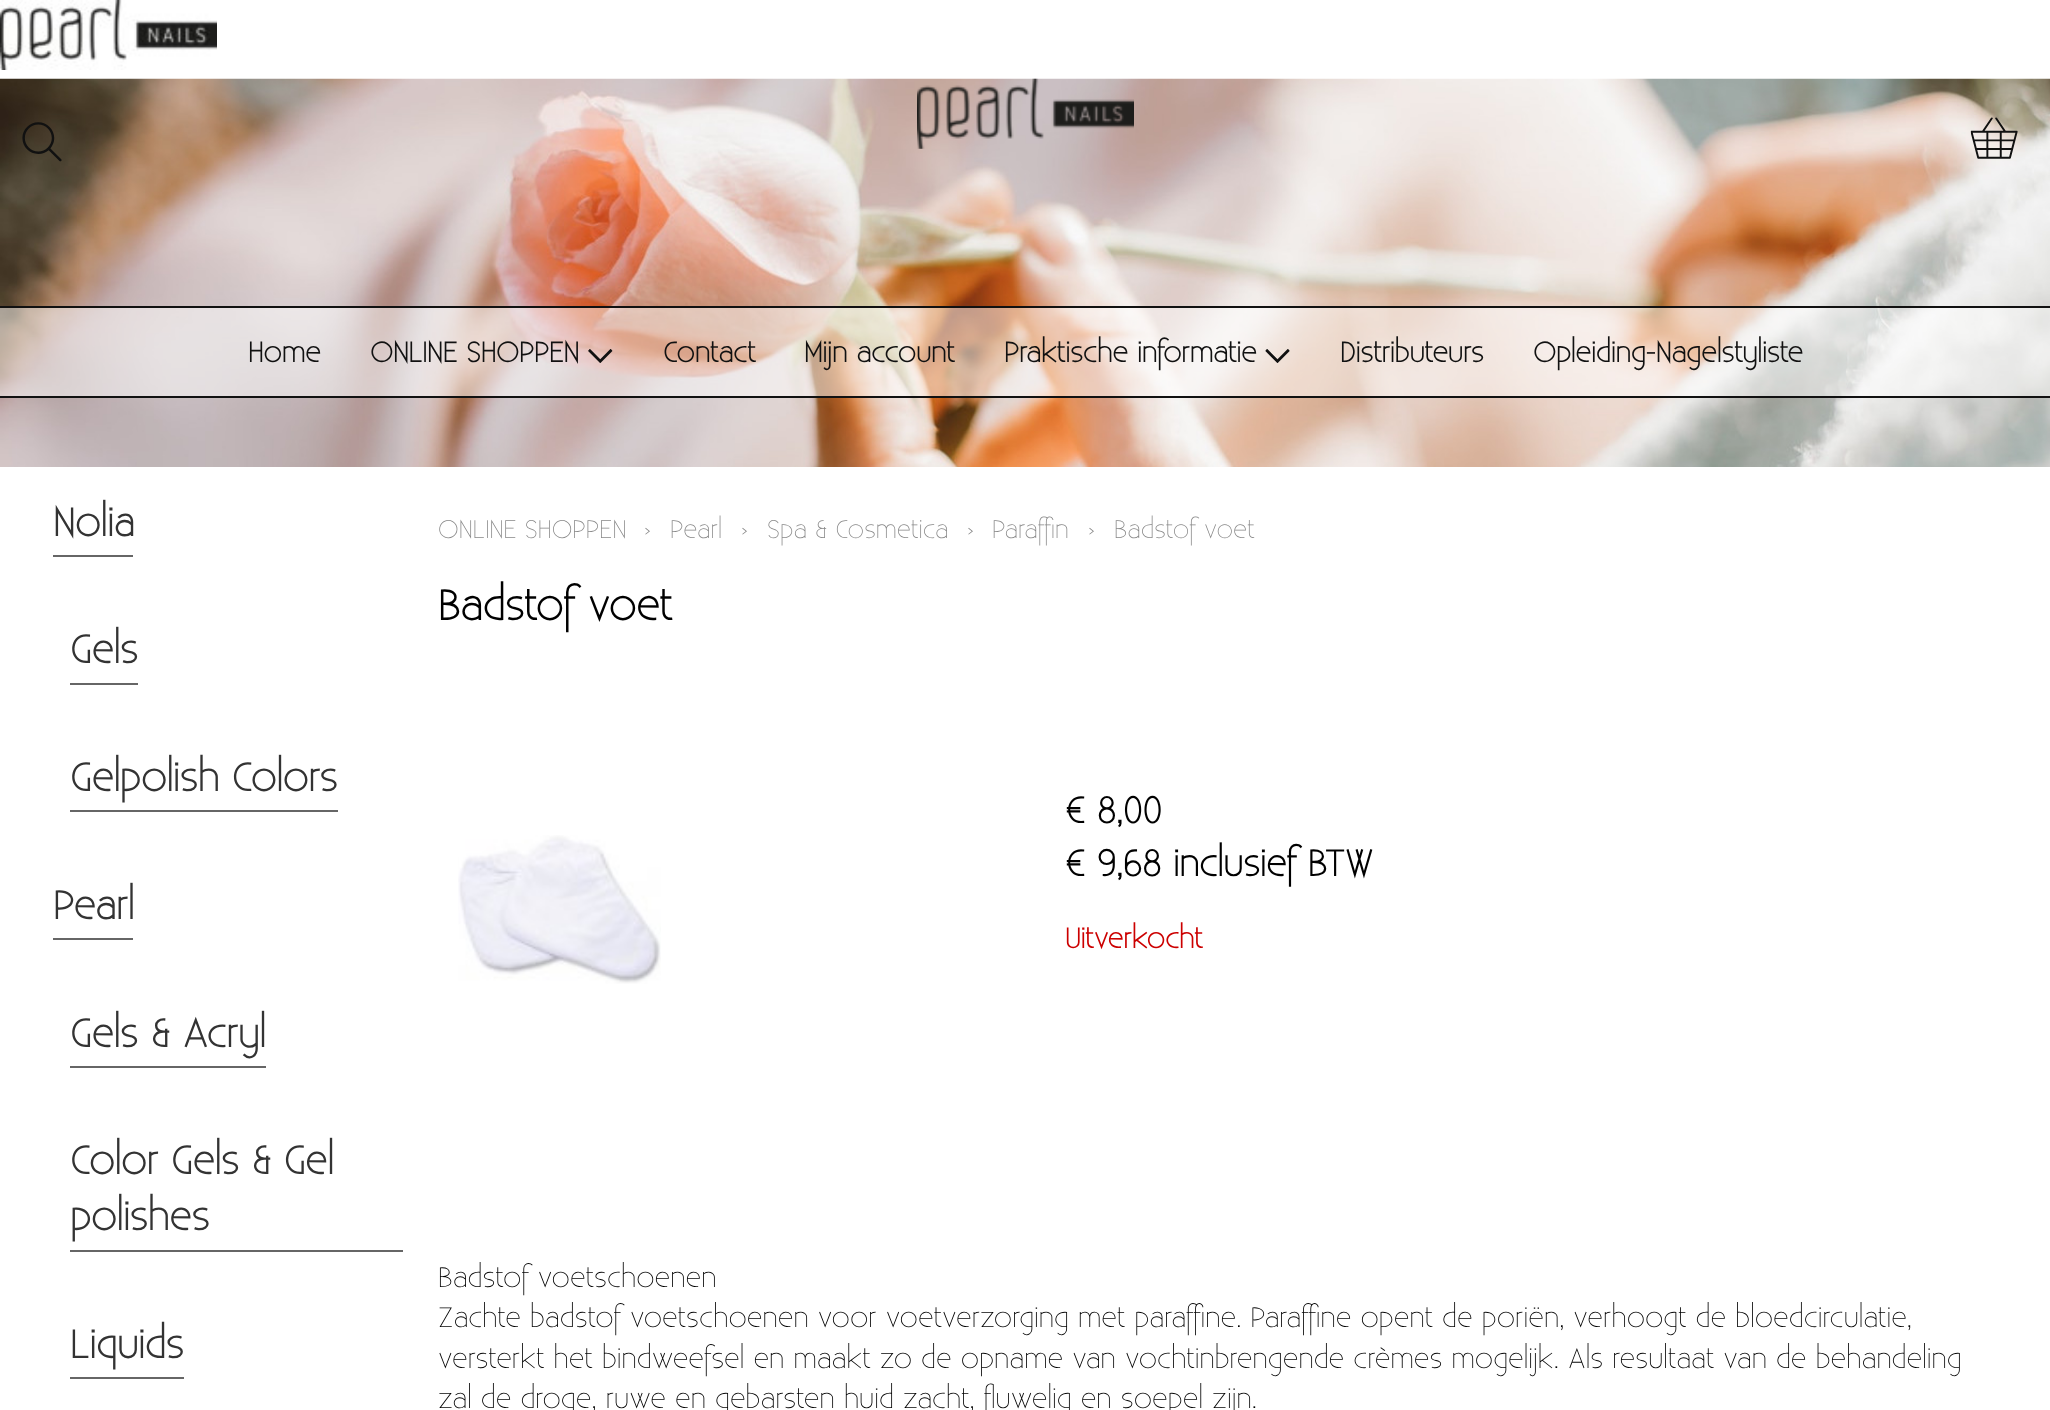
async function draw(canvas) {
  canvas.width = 2050;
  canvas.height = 1410;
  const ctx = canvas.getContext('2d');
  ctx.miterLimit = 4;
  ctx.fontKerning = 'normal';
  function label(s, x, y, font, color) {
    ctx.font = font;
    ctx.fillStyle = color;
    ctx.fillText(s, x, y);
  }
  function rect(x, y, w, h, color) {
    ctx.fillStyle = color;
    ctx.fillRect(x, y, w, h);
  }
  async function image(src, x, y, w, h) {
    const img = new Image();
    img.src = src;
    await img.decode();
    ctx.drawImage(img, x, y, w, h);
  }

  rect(0, 0, 2050, 1410, '#fff');
  await image('assets/img1.png', 0, 0, 217, 70);
  await image('assets/img2.png', 0, 78, 2050, 389);
  await image('assets/img3.png', 22, 122, 40, 40);
  await image('assets/img4.png', 917, 78, 217, 71);
  await image('assets/img5.png', 1970, 117, 48, 42);
  rect(0, 308, 2050, 88, '#ffffff80');
  rect(0, 306, 2050, 2, '#111');
  rect(0, 396, 2050, 2, '#111');
  label('Home', 248, 362, 'bold 28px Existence', '#111');
  label('ONLINE SHOPPEN', 370, 362, 'bold 28px Existence', '#111');
  await image('assets/img6.png', 588, 349, 25, 14);
  label('Contact', 663, 362, 'bold 28px Existence', '#111');
  label('Mijn account', 804, 362, 'bold 28px Existence', '#111');
  label('Praktische informatie', 1004, 362, 'bold 28px Existence', '#111');
  await image('assets/img7.png', 1265, 349, 25, 14);
  label('Distributeurs', 1340, 362, 'bold 28px Existence', '#111');
  label('Opleiding-Nagelstyliste', 1533, 362, 'bold 28px Existence', '#111');
  rect(53, 555, 80, 2, '#666');
  label('Nolia', 53, 536, 'bold 39.25px Existence', '#333');
  rect(70, 683, 68, 2, '#666');
  label('Gels', 70, 663, 'bold 39.25px Existence', '#333');
  rect(70, 810, 268, 2, '#666');
  label('Gelpolish Colors', 70, 791, 'bold 39.25px Existence', '#333');
  rect(53, 938, 80, 2, '#666');
  label('Pearl', 53, 919, 'bold 39.25px Existence', '#333');
  rect(70, 1066, 196, 2, '#666');
  label('Gels & Acryl', 70, 1047, 'bold 39.25px Existence', '#333');
  rect(70, 1250, 333, 2, '#666');
  label('Color Gels & Gel', 70, 1174, 'bold 39.25px Existence', '#333');
  label('polishes', 70, 1230, 'bold 39.25px Existence', '#333');
  rect(70, 1377, 114, 2, '#666');
  label('Liquids', 70, 1358, 'bold 39.25px Existence', '#333');
  label('ONLINE SHOPPEN', 438, 538, '300 25.25px Existence', '#888');
  label('›', 644, 538, '300 25.25px Existence', '#888');
  label('Pearl', 670, 538, '300 25.25px Existence', '#888');
  label('›', 741, 538, '300 25.25px Existence', '#888');
  label('Spa & Cosmetica', 767, 538, '300 25.25px Existence', '#888');
  label('›', 967, 538, '300 25.25px Existence', '#888');
  label('Paraffin', 992, 538, '300 25.25px Existence', '#888');
  label('›', 1088, 538, '300 25.25px Existence', '#888');
  label('Badstof voet', 1114, 538, '300 25.25px Existence', '#888');
  label('Badstof voet', 438, 620, 'bold 42px Existence', '#000');
  await image('assets/img8.png', 458, 835, 203, 149);
  label('€ 8,00', 1065, 823, 'bold 36.5px Existence', '#000');
  label('€ 9,68 inclusief BTW', 1065, 876, 'bold 36.5px Existence', '#000');
  label('Uitverkocht', 1065, 948, 'bold 28px Existence', '#c00');
  label('Badstof voetschoenen', 438, 1287, '300 28px Existence', '#000');
  label('Zachte badstof voetschoenen voor voetverzorging met paraffine. Paraffine opent de poriën, verhoogt de bloedcirculatie,', 438, 1327, '300 28px Existence', '#000');
  label('versterkt het bindweefsel en maakt zo de opname van vochtinbrengende crèmes mogelijk. Als resultaat van de behandeling', 438, 1368, '300 28px Existence', '#000');
  label('zal de droge, ruwe en gebarsten huid zacht, fluwelig en soepel zijn.', 438, 1408, '300 28px Existence', '#000');
}

draw(document.querySelector('canvas'));
